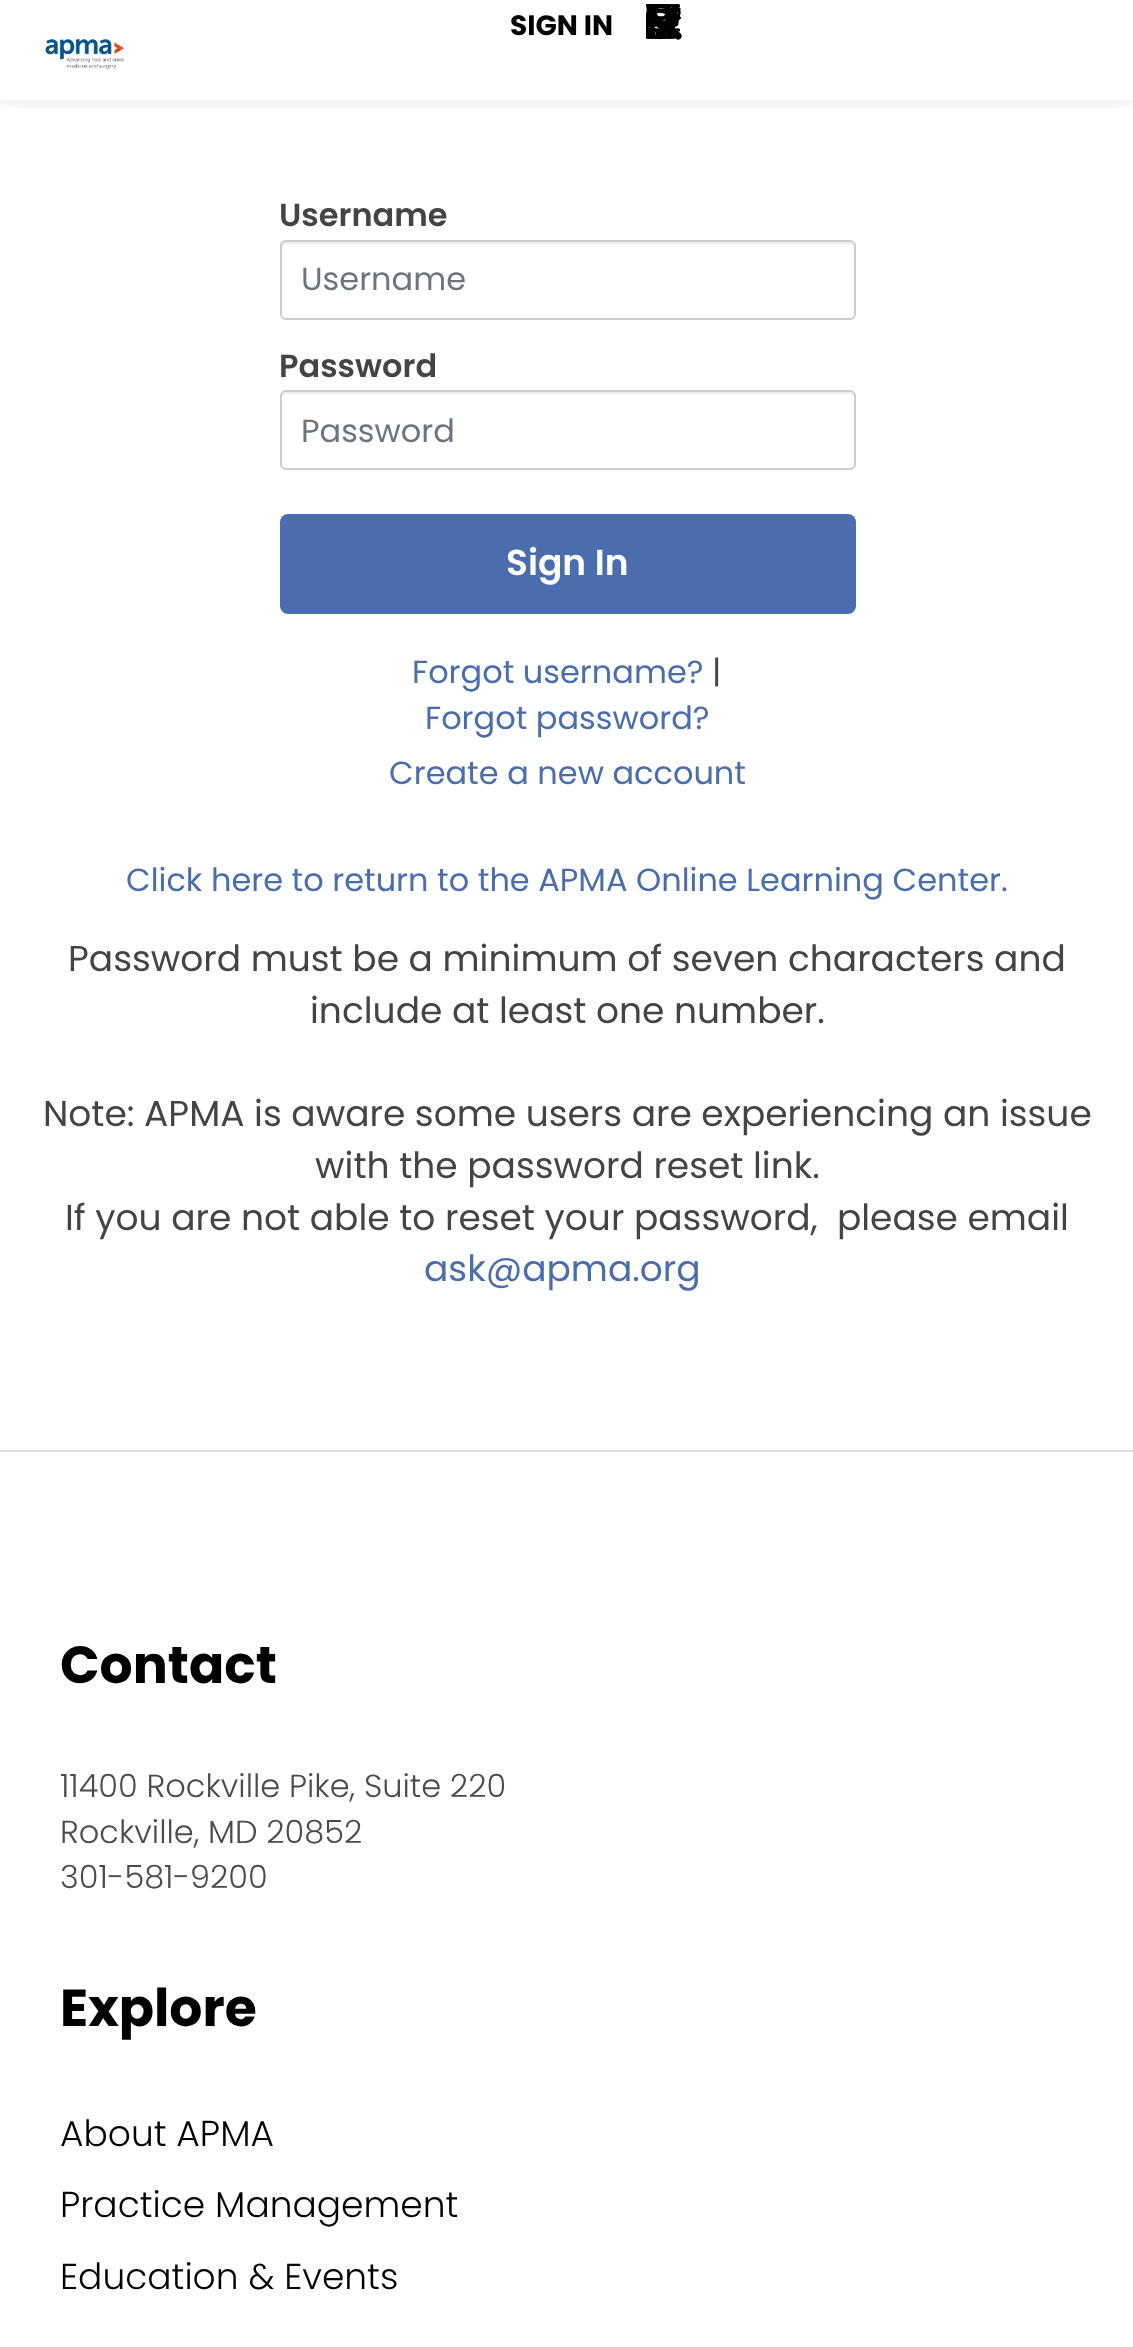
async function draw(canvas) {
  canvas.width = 1133;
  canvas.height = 2347;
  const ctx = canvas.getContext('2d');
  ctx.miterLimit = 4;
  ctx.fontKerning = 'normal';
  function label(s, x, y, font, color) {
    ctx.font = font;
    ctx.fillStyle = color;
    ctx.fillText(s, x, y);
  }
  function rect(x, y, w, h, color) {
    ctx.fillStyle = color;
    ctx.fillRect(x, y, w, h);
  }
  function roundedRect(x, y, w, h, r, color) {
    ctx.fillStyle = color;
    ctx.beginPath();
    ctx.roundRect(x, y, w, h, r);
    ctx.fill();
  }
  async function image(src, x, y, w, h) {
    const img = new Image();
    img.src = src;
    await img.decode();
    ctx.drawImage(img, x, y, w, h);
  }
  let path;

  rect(0, 0, 1133, 2347, '#fff');
  ctx.save();
  ctx.beginPath();
  ctx.rect(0, 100, 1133, 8);
  ctx.clip();
  ctx.fillStyle = '#0000001a';
  ctx.filter = 'blur(10px)';
  ctx.beginPath();
  ctx.rect(0, 0, 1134, 100);
  ctx.fill();
  ctx.filter = 'none';
  ctx.restore();
  label('SIGN IN', 510, 35, 'bold 28px Poppins', '#000');
  await image('assets/img1.png', 646, 4, 36, 36);
  await image('assets/img2.png', 45, 38, 79, 31);
  label('Username', 279, 226, '600 32px Poppins', '#444');
  ctx.fillStyle = '#ececec';
  path = new Path2D('M286 244H850C852 244 854 246 854 248C854 245 854 242 850 242H286C282 242 282 245 282 248C282 246 284 244 286 244Z');
  ctx.fill(path);
  ctx.beginPath();
  ctx.roundRect(281, 241, 574, 78, 5);
  ctx.strokeStyle = '#ccc';
  ctx.lineWidth = 2;
  ctx.stroke();
  label('Username', 301, 290, '32px Poppins', '#6c757d');
  label('Password', 279, 377, '600 32px Poppins', '#444');
  ctx.fillStyle = '#ececec';
  path = new Path2D('M286 394H850C852 394 854 396 854 398C854 395 854 392 850 392H286C282 392 282 395 282 398C282 396 284 394 286 394Z');
  ctx.fill(path);
  ctx.beginPath();
  ctx.roundRect(281, 391, 574, 78, 5);
  ctx.stroke();
  label('Password', 301, 442, '32px Poppins', '#6c757d');
  roundedRect(280, 514, 576, 100, 8, '#496dad');
  label('Sign In', 506, 575, '600 36px Poppins', '#fff');
  label('Forgot username?', 412, 683, '32px Poppins', '#496dad');
  label('|', 712, 683, '32px Poppins', '#444');
  label('Forgot password?', 425, 729, '32px Poppins', '#496dad');
  label('Create a new account', 389, 784, '32px Poppins', '#496dad');
  label('Click here to return to the APMA Online Learning Center.', 126, 891, '32px Poppins', '#496dad');
  label('Password must be a minimum of seven characters and', 68, 971, '36px Poppins', '#444');
  label('include at least one number.', 310, 1023, '36px Poppins', '#444');
  label('Note: APMA is aware some users are experiencing an issue', 43, 1126, '36px Poppins', '#444');
  label('with the password reset link.', 315, 1178, '36px Poppins', '#444');
  label('If you are not able to reset your password,  please email', 65, 1230, '36px Poppins', '#444');
  label('ask@apma.org', 424, 1281, '36px Poppins', '#496dad');
  rect(0, 1450, 1133, 2, '#dedede');
  label('Contact', 60, 1683, 'bold 52px Poppins', '#000');
  label('11400 Rockville Pike, Suite 220', 60, 1797, '300 32px Poppins', '#4b4b4b');
  label('Rockville, MD 20852', 60, 1843, '300 32px Poppins', '#4b4b4b');
  label('301-581-9200', 60, 1888, '300 32px Poppins', '#4b4b4b');
  label('Explore', 60, 2026, 'bold 52px Poppins', '#000');
  label('About APMA', 60, 2146, '300 36px Poppins', '#000');
  label('Practice Management', 60, 2217, '300 36px Poppins', '#000');
  label('Education & Events', 60, 2289, '300 36px Poppins', '#000');
}

draw(document.querySelector('canvas'));
